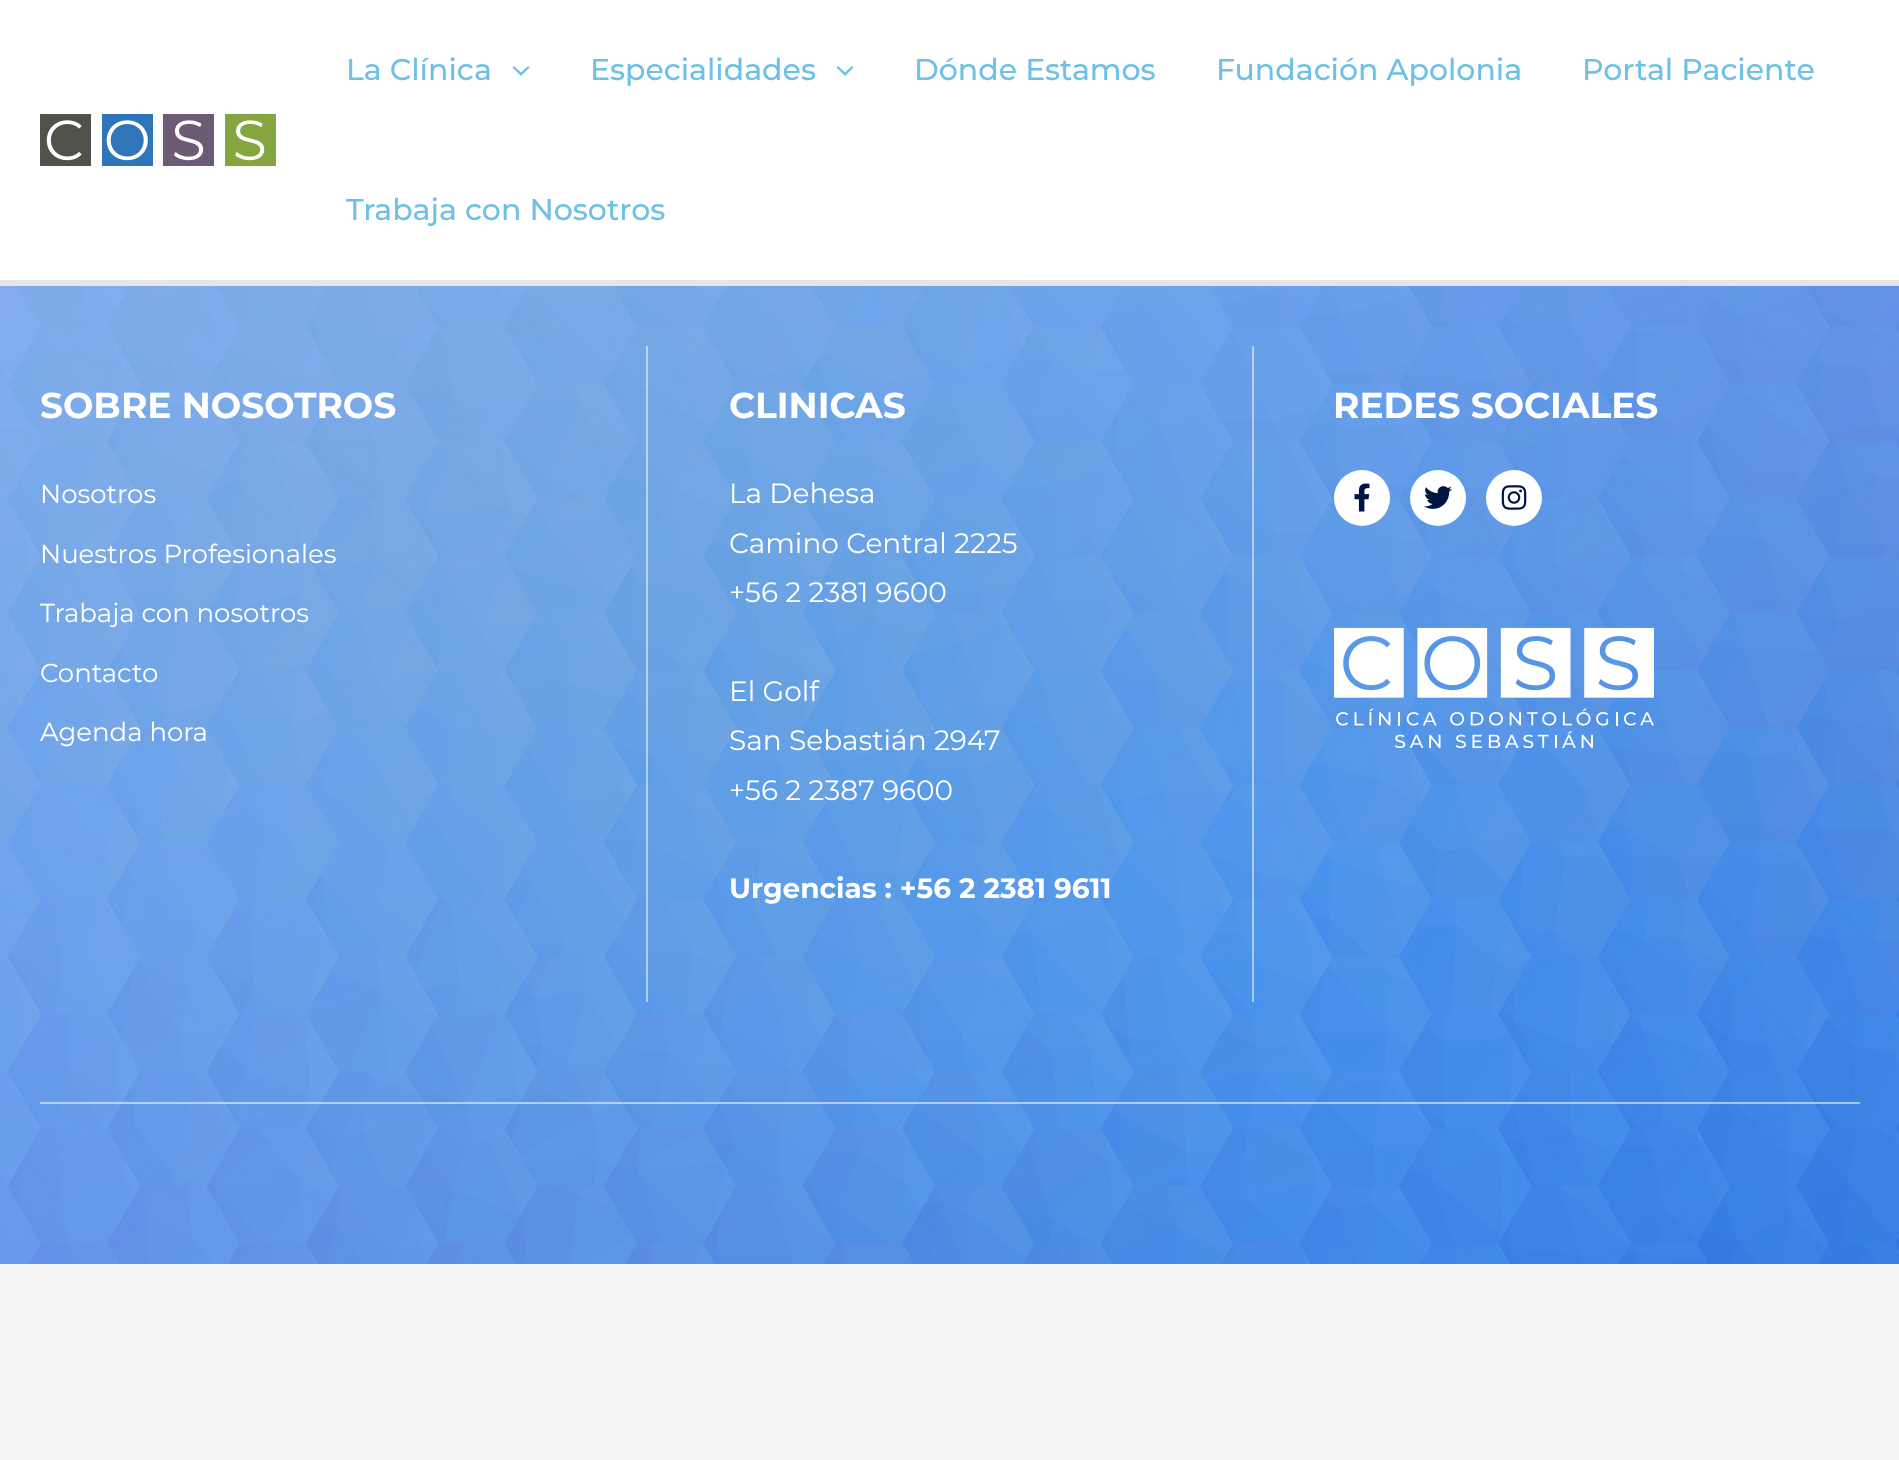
async function draw(canvas) {
  canvas.width = 1899;
  canvas.height = 1460;
  const ctx = canvas.getContext('2d');
  ctx.miterLimit = 4;
  ctx.fontKerning = 'normal';
  function label(s, x, y, font, color) {
    ctx.font = font;
    ctx.fillStyle = color;
    ctx.fillText(s, x, y);
  }
  function rect(x, y, w, h, color) {
    ctx.fillStyle = color;
    ctx.fillRect(x, y, w, h);
  }
  async function image(src, x, y, w, h) {
    const img = new Image();
    img.src = src;
    await img.decode();
    ctx.drawImage(img, x, y, w, h);
  }
  let path;

  rect(0, 0, 1899, 1460, '#f5f5f5');
  rect(0, 0, 1899, 280, '#fff');
  rect(0, 280, 1899, 6, '#e5e5e5');
  await image('assets/img1.png', 40, 114, 236, 52);
  label('La Clínica', 346, 80, '500 30px Montserrat', '#6ec1e4');
  path = new Path2D('M512.5 67.5L521 76L529.5 67.5L528 66L521 72.5L514 66Z');
  ctx.fill(path);
  label('Especialidades', 590, 80, '500 30px Montserrat', '#6ec1e4');
  path = new Path2D('M836.5 67.5L845 76L853.5 67.5L852 66L845 72.5L838 66Z');
  ctx.fill(path);
  label('Dónde Estamos', 914, 80, '500 30px Montserrat', '#6ec1e4');
  label('Fundación Apolonia', 1216, 80, '500 30px Montserrat', '#6ec1e4');
  label('Portal Paciente', 1582, 80, '500 30px Montserrat', '#6ec1e4');
  label('Trabaja con Nosotros', 346, 220, '500 30px Montserrat', '#6ec1e4');
  await image('assets/img2.png', 0, 286, 1899, 978);
  label('SOBRE NOSOTROS', 40, 418, 'bold 36px Montserrat', '#fff');
  label('Nosotros', 40, 503, '26px Montserrat', '#fff');
  label('Nuestros Profesionales', 40, 563, '26px Montserrat', '#fff');
  label('Trabaja con nosotros', 40, 622, '26px Montserrat', '#fff');
  label('Contacto', 40, 682, '26px Montserrat', '#fff');
  label('Agenda hora', 40, 741, '26px Montserrat', '#fff');
  rect(1252, 346, 2, 656, '#ffffff85');
  rect(646, 346, 2, 656, '#ffffff85');
  label('CLINICAS', 729, 418, 'bold 36px Montserrat', '#fff');
  label('La Dehesa', 729, 503, '28px Montserrat', '#fff');
  label('Camino Central 2225', 729, 553, '28px Montserrat', '#fff');
  label('+56 2 2381 9600', 729, 602, '28px Montserrat', '#fff');
  label('El Golf', 729, 701, '28px Montserrat', '#fff');
  label('San Sebastián 2947', 729, 750, '28px Montserrat', '#fff');
  label('+56 2 2387 9600', 729, 800, '28px Montserrat', '#fff');
  label('Urgencias : +56 2 2381 9611', 729, 898, 'bold 28px Montserrat', '#fff');
  label('REDES SOCIALES', 1333, 418, 'bold 36px Montserrat', '#fff');
  ctx.beginPath();
  ctx.arc(1362, 498, 28, 0, 2 * Math.PI);
  ctx.fill();
  await image('assets/img3.png', 1354, 483, 16, 29);
  ctx.beginPath();
  ctx.arc(1438, 498, 28, 0, 2 * Math.PI);
  ctx.fill();
  await image('assets/img4.png', 1424, 486, 28, 23);
  ctx.beginPath();
  ctx.arc(1514, 498, 28, 0, 2 * Math.PI);
  ctx.fill();
  await image('assets/img5.png', 1501, 485, 26, 25);
  await image('assets/img6.png', 1334, 627, 320, 121);
  rect(40, 1102, 1820, 2, '#ffffff8a');
}

draw(document.querySelector('canvas'));
